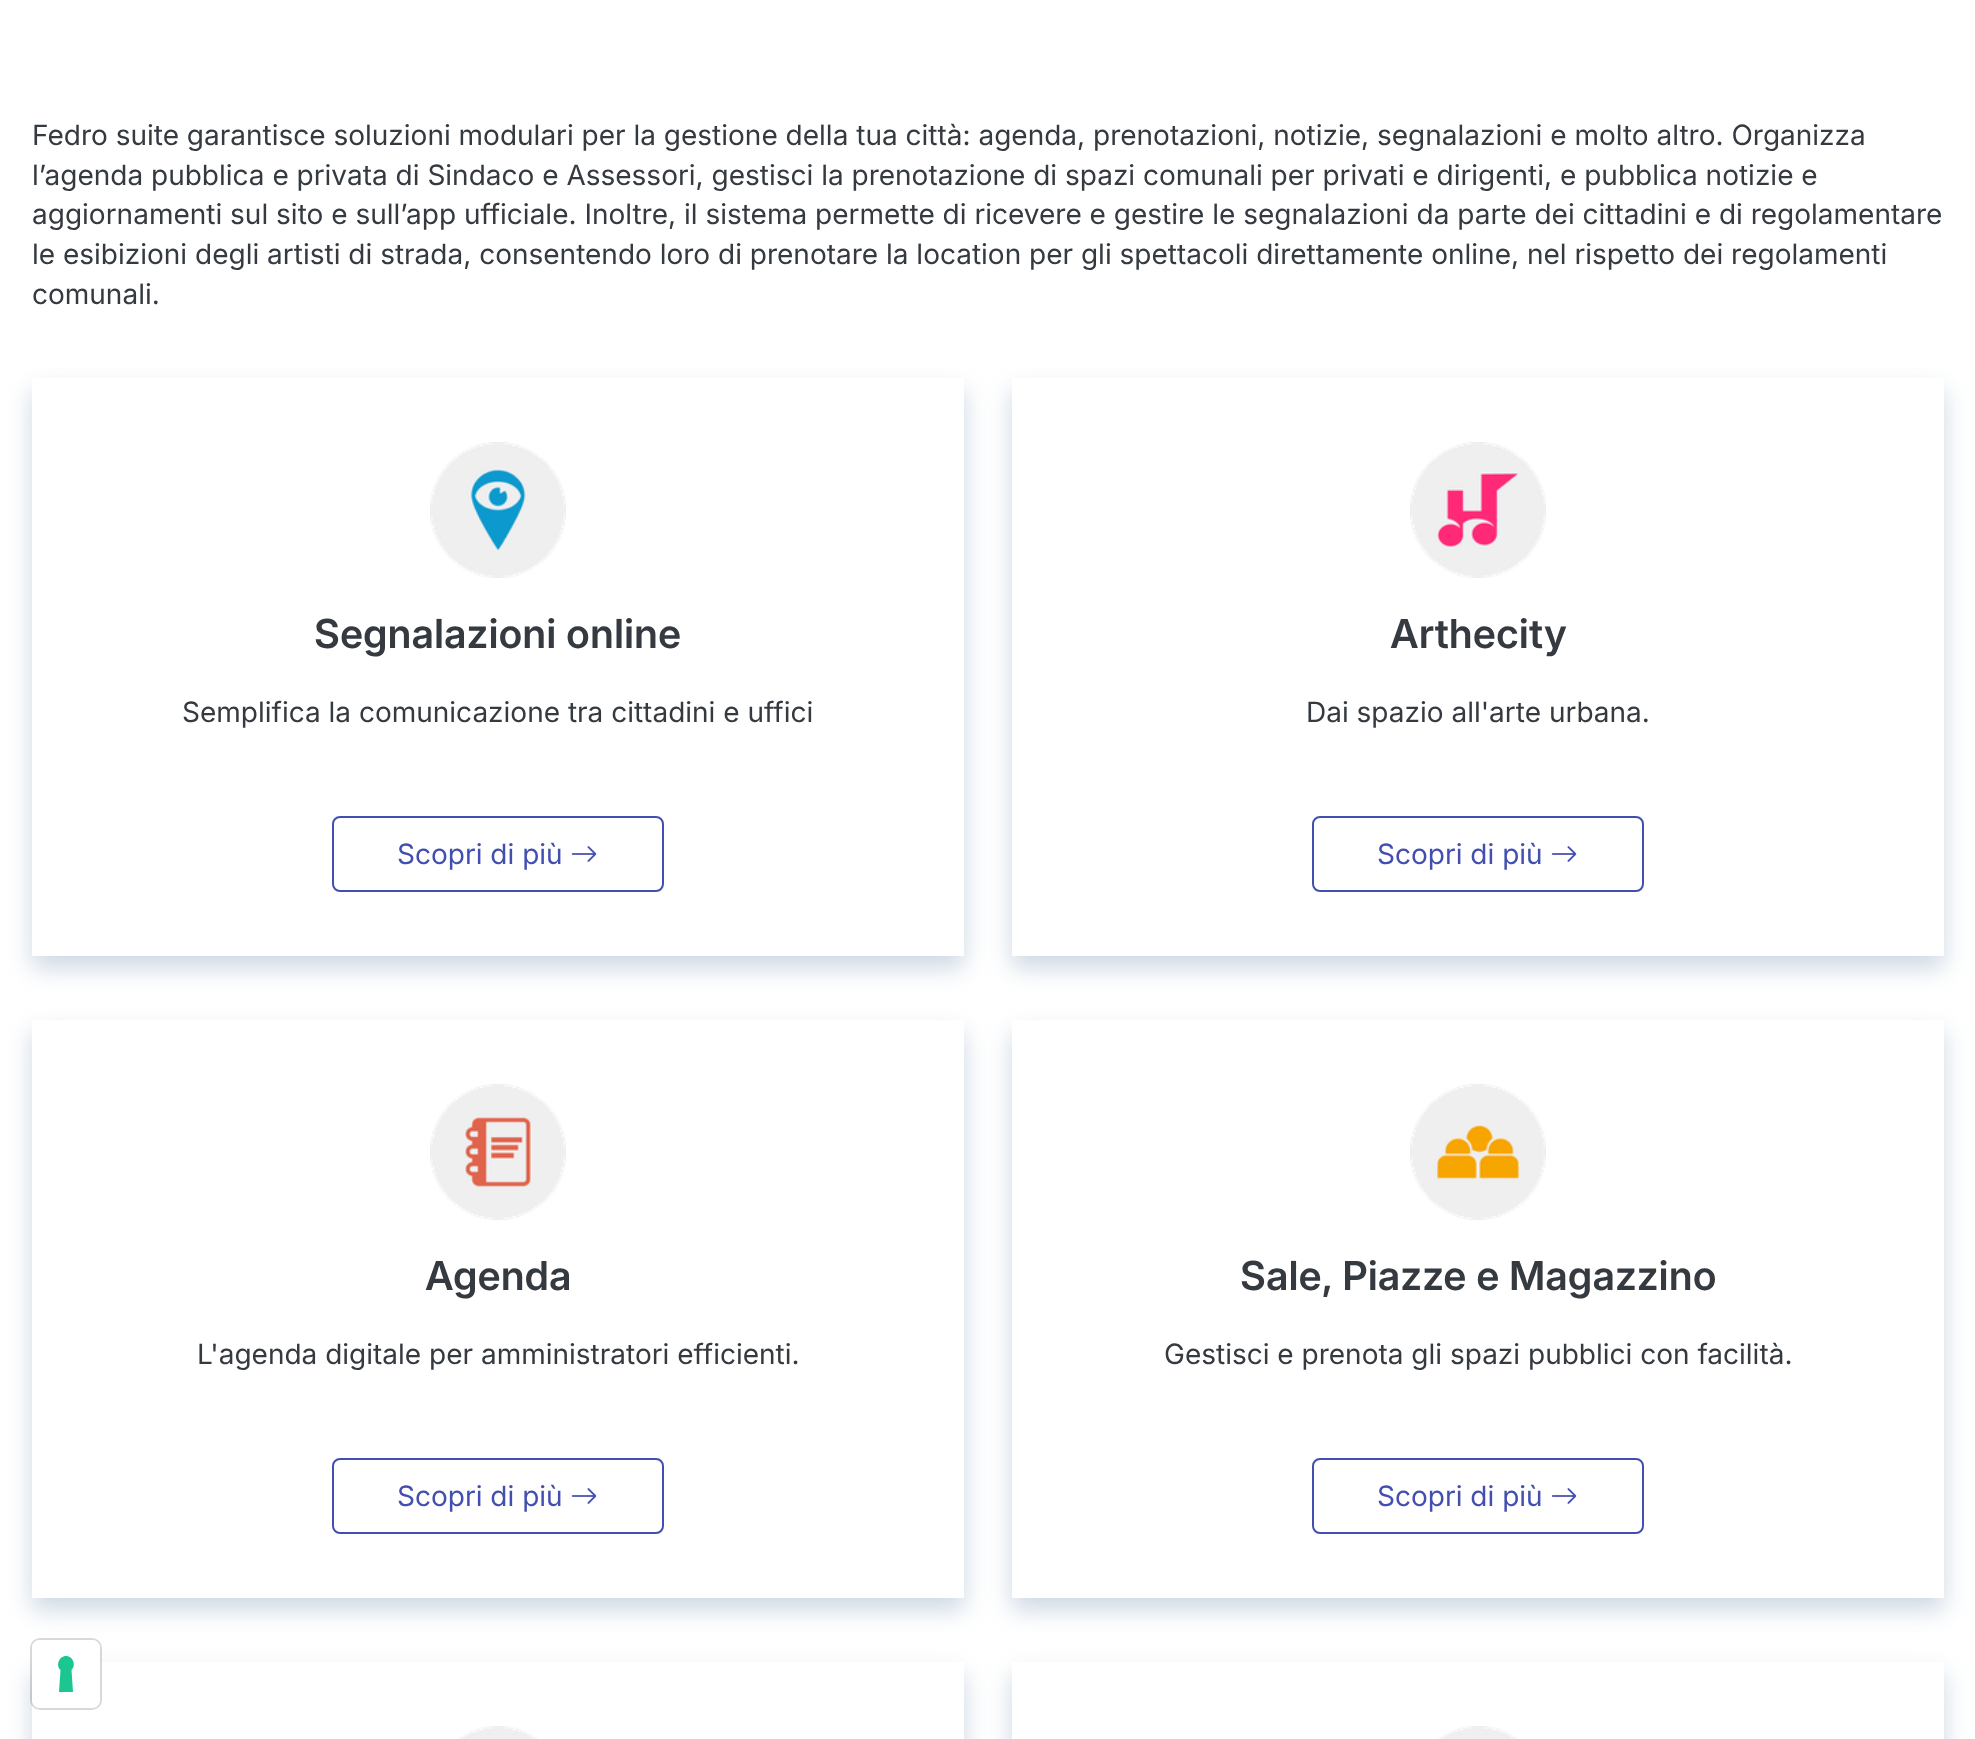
async function draw(canvas) {
  canvas.width = 1975;
  canvas.height = 1739;
  const ctx = canvas.getContext('2d');
  ctx.miterLimit = 4;
  ctx.fontKerning = 'normal';
  function label(s, x, y, font, color) {
    ctx.font = font;
    ctx.fillStyle = color;
    ctx.fillText(s, x, y);
  }
  function rect(x, y, w, h, color) {
    ctx.fillStyle = color;
    ctx.fillRect(x, y, w, h);
  }
  function roundedRect(x, y, w, h, r, color) {
    ctx.fillStyle = color;
    ctx.beginPath();
    ctx.roundRect(x, y, w, h, r);
    ctx.fill();
  }
  async function image(src, x, y, w, h) {
    const img = new Image();
    img.src = src;
    await img.decode();
    ctx.drawImage(img, x, y, w, h);
  }
  let path;

  rect(0, 0, 1975, 1739, '#fff');
  label('Fedro suite garantisce soluzioni modulari per la gestione della tua città: agenda, prenotazioni, notizie, segnalazioni e molto altro. Organizza', 32, 145, '28px Inter', '#343a40');
  label('l’agenda pubblica e privata di Sindaco e Assessori, gestisci la prenotazione di spazi comunali per privati e dirigenti, e pubblica notizie e', 32, 185, '28px Inter', '#343a40');
  label('aggiornamenti sul sito e sull’app ufficiale. Inoltre, il sistema permette di ricevere e gestire le segnalazioni da parte dei cittadini e di regolamentare', 32, 224, '28px Inter', '#343a40');
  label('le esibizioni degli artisti di strada, consentendo loro di prenotare la location per gli spettacoli direttamente online, nel rispetto dei regolamenti', 32, 264, '28px Inter', '#343a40');
  label('comunali.', 32, 304, '28px Inter', '#343a40');
  ctx.save();
  path = new Path2D('M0 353H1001V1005H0ZM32 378H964V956H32Z');
  ctx.clip(path, 'evenodd');
  ctx.fillStyle = '#abbed199';
  ctx.filter = 'blur(12px)';
  ctx.beginPath();
  ctx.rect(32, 390, 932, 578);
  ctx.fill();
  ctx.filter = 'none';
  ctx.restore();
  await image('assets/img1.png', 430, 442, 136, 136);
  label('Segnalazioni online', 314, 648, '600 40px Inter', '#343a40');
  label('Semplifica la comunicazione tra cittadini e uffici', 182, 722, '28px Inter', '#343a40');
  ctx.beginPath();
  ctx.roundRect(333, 817, 330, 74, 7);
  ctx.strokeStyle = '#424fb0';
  ctx.lineWidth = 2;
  ctx.stroke();
  label('Scopri di più', 397, 864, '28px Inter', '#424fb0');
  await image('assets/img2.png', 571, 846, 26, 16);
  ctx.save();
  path = new Path2D('M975 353H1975V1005H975ZM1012 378H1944V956H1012Z');
  ctx.clip(path, 'evenodd');
  ctx.fillStyle = '#abbed199';
  ctx.filter = 'blur(12px)';
  ctx.beginPath();
  ctx.rect(1012, 390, 932, 578);
  ctx.fill();
  ctx.filter = 'none';
  ctx.restore();
  await image('assets/img3.png', 1410, 442, 136, 136);
  label('Arthecity', 1390, 648, '600 40px Inter', '#343a40');
  label('Dai spazio all\'arte urbana.', 1306, 722, '28px Inter', '#343a40');
  ctx.beginPath();
  ctx.roundRect(1313, 817, 330, 74, 7);
  ctx.stroke();
  label('Scopri di più', 1377, 864, '28px Inter', '#424fb0');
  await image('assets/img2.png', 1551, 846, 26, 16);
  ctx.save();
  path = new Path2D('M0 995H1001V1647H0ZM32 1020H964V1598H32Z');
  ctx.clip(path, 'evenodd');
  ctx.fillStyle = '#abbed199';
  ctx.filter = 'blur(12px)';
  ctx.beginPath();
  ctx.rect(32, 1032, 932, 578);
  ctx.fill();
  ctx.filter = 'none';
  ctx.restore();
  await image('assets/img4.png', 430, 1084, 136, 136);
  label('Agenda', 425, 1290, '600 40px Inter', '#343a40');
  label('L\'agenda digitale per amministratori efficienti.', 197, 1364, '28px Inter', '#343a40');
  ctx.beginPath();
  ctx.roundRect(333, 1459, 330, 74, 7);
  ctx.stroke();
  label('Scopri di più', 397, 1506, '28px Inter', '#424fb0');
  await image('assets/img2.png', 571, 1488, 26, 16);
  ctx.save();
  path = new Path2D('M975 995H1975V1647H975ZM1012 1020H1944V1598H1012Z');
  ctx.clip(path, 'evenodd');
  ctx.fillStyle = '#abbed199';
  ctx.filter = 'blur(12px)';
  ctx.beginPath();
  ctx.rect(1012, 1032, 932, 578);
  ctx.fill();
  ctx.filter = 'none';
  ctx.restore();
  await image('assets/img5.png', 1410, 1084, 136, 136);
  label('Sale, Piazze e Magazzino', 1240, 1290, '600 40px Inter', '#343a40');
  label('Gestisci e prenota gli spazi pubblici con facilità.', 1164, 1364, '28px Inter', '#343a40');
  ctx.beginPath();
  ctx.roundRect(1313, 1459, 330, 74, 7);
  ctx.stroke();
  label('Scopri di più', 1377, 1506, '28px Inter', '#424fb0');
  await image('assets/img2.png', 1551, 1488, 26, 16);
  ctx.save();
  path = new Path2D('M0 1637H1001V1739H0ZM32 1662H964V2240H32Z');
  ctx.clip(path, 'evenodd');
  ctx.fillStyle = '#abbed199';
  ctx.filter = 'blur(12px)';
  ctx.beginPath();
  ctx.rect(32, 1674, 932, 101);
  ctx.fill();
  ctx.filter = 'none';
  ctx.restore();
  await image('assets/img6.png', 458, 1726, 80, 13);
  ctx.save();
  path = new Path2D('M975 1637H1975V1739H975ZM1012 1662H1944V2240H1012Z');
  ctx.clip(path, 'evenodd');
  ctx.fillStyle = '#abbed199';
  ctx.filter = 'blur(12px)';
  ctx.beginPath();
  ctx.rect(1012, 1674, 932, 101);
  ctx.fill();
  ctx.filter = 'none';
  ctx.restore();
  await image('assets/img6.png', 1438, 1726, 80, 13);
  ctx.beginPath();
  ctx.roundRect(31, 1639, 70, 70, 9);
  ctx.strokeStyle = '#00000026';
  ctx.stroke();
  roundedRect(32, 1640, 68, 68, 8, '#fff');
  ctx.fillStyle = '#1cc691';
  path = new Path2D('M66 1656C73 1656 76.5 1665.5 71.5 1670L73 1692H59L60.5 1670C55.5 1665.5 59 1656 66 1656Z');
  ctx.fill(path, 'evenodd');
}

draw(document.querySelector('canvas'));
